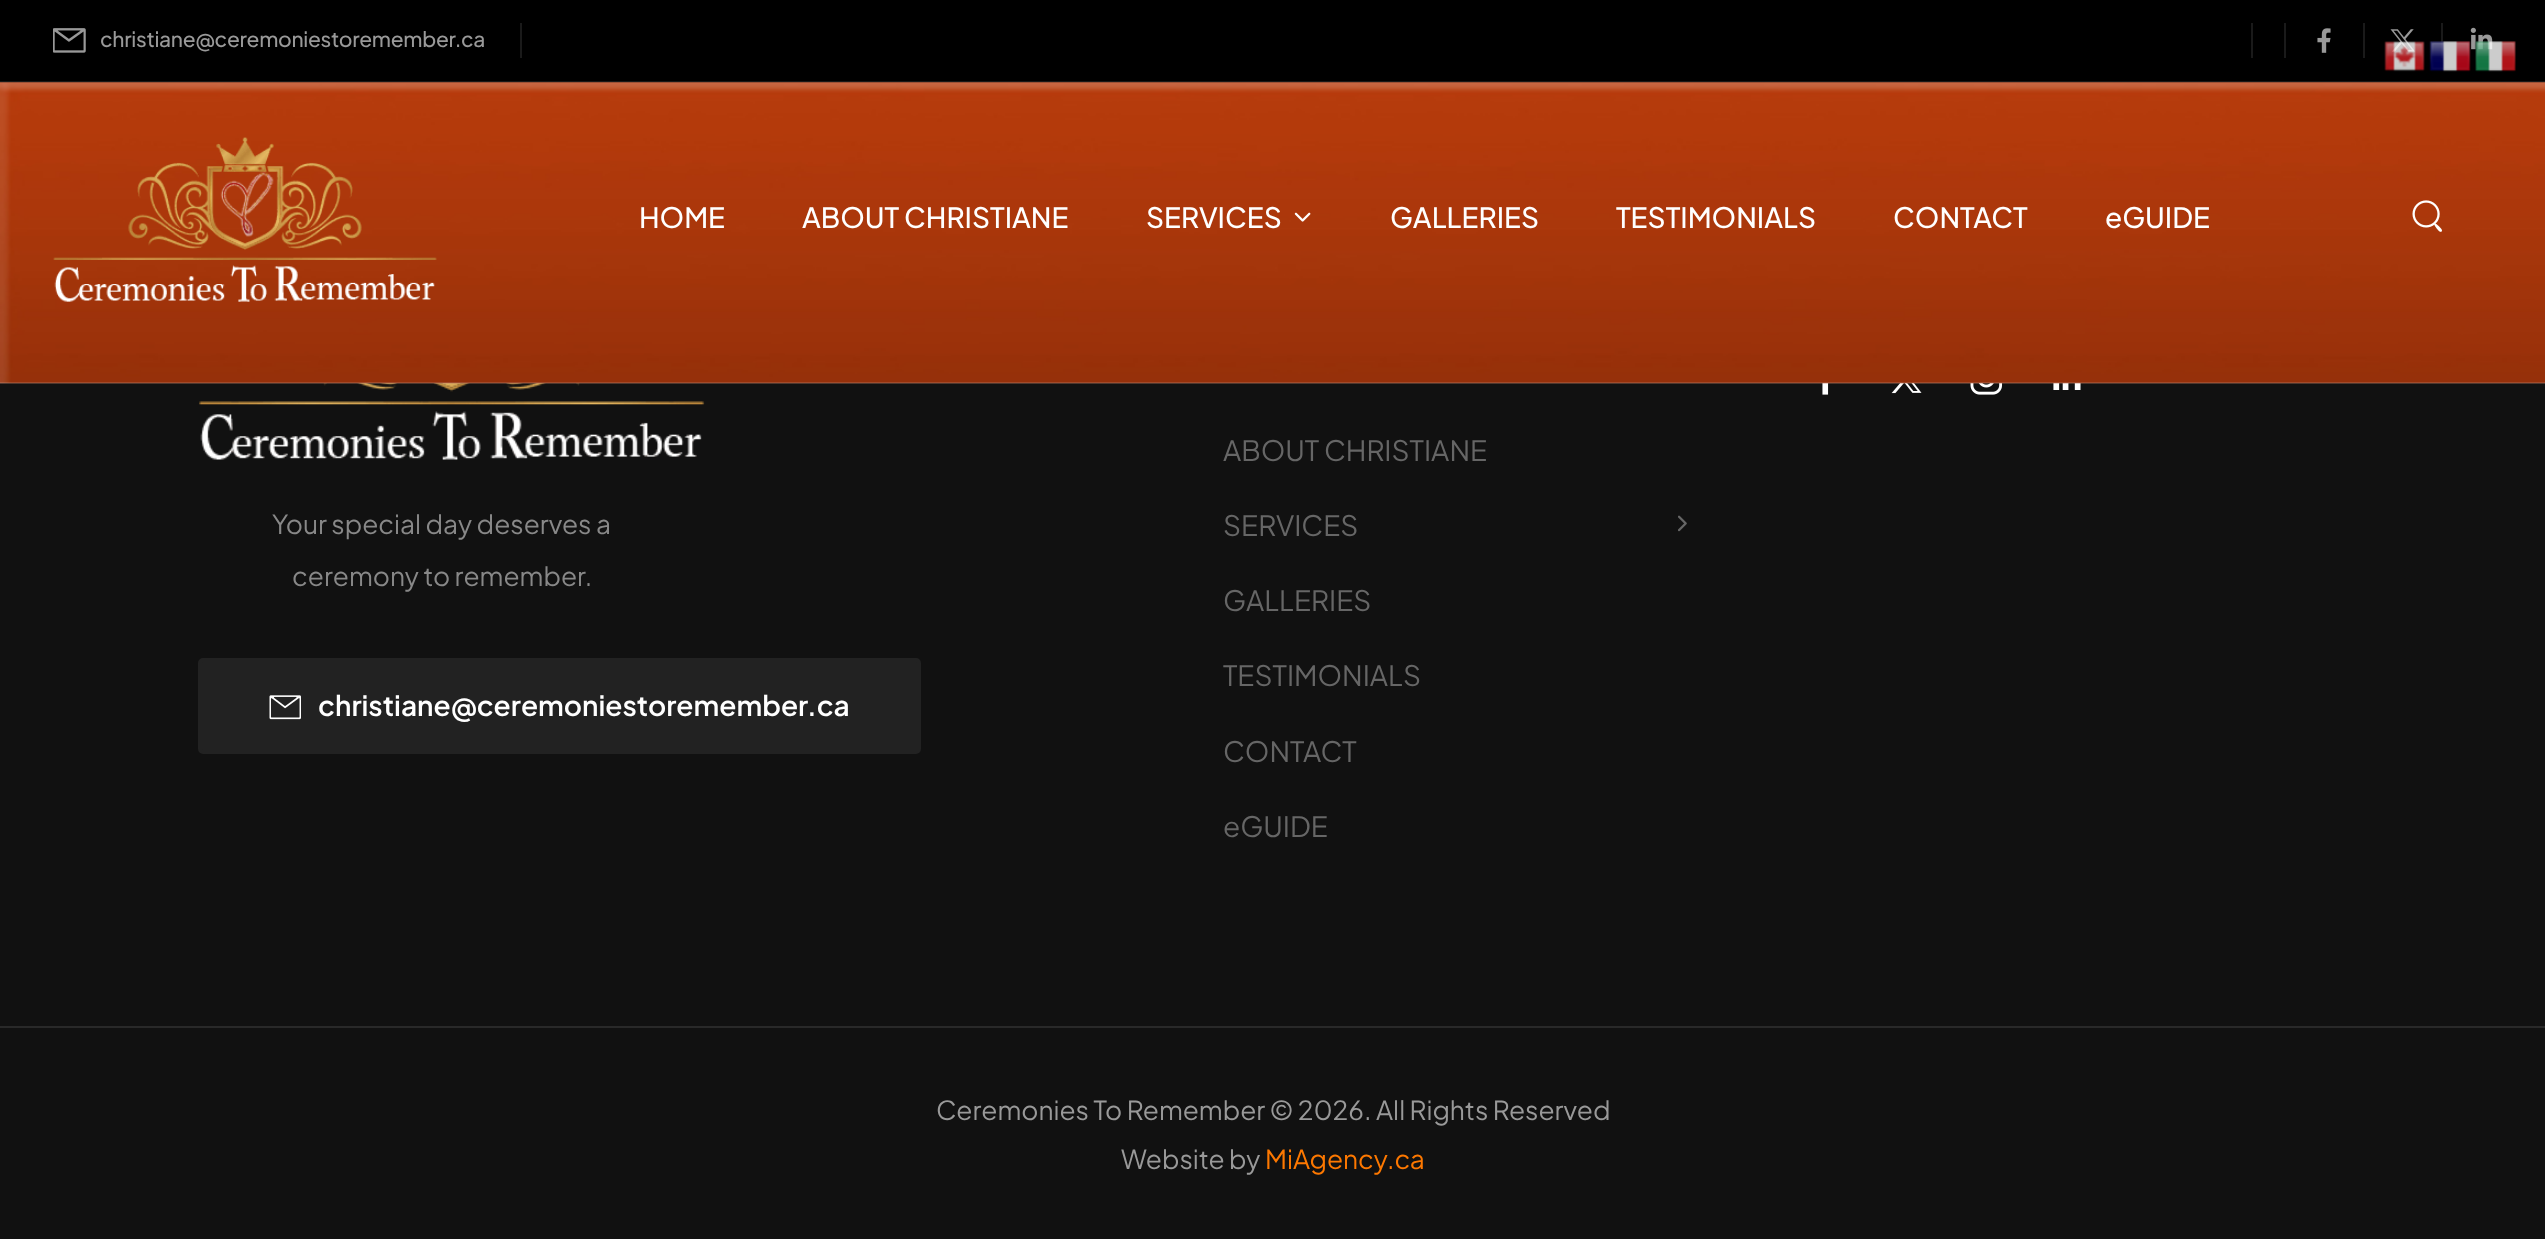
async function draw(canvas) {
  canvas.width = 2545;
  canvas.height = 1239;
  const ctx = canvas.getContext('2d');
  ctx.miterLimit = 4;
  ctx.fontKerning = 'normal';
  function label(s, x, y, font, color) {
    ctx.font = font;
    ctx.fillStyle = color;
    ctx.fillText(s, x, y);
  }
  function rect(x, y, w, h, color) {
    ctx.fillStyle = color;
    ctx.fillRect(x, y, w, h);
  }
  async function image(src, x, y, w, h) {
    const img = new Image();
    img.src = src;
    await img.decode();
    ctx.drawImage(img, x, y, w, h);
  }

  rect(0, 0, 2545, 1239, '#111');
  rect(0, 0, 2545, 81, '#000');
  rect(0, 81, 2545, 1, '#181818');
  await image('assets/img1.png', 53, 28, 33, 25);
  ctx.letterSpacing = '-0.3px';
  label('christiane@ceremoniestoremember.ca', 100, 47, '500 21px Plus Jakarta Sans', '#999');
  rect(520, 23, 2, 35, '#1a1a1a');
  rect(2251, 23, 2, 35, '#1a1a1a');
  rect(2284, 23, 2, 35, '#1a1a1a');
  await image('assets/img2.png', 2317, 28, 14, 25);
  rect(2363, 23, 2, 35, '#1a1a1a');
  await image('assets/img3.png', 2390, 29, 25, 23);
  rect(2441, 23, 2, 35, '#1a1a1a');
  await image('assets/img4.png', 2470, 27, 23, 23);
  await image('assets/img9.png', 1822, 383, 7, 12);
  await image('assets/img10.png', 1891, 383, 31, 11);
  await image('assets/img11.png', 1970, 383, 33, 12);
  await image('assets/img12.png', 2053, 383, 28, 7);
  await image('assets/img13.png', 199, 383, 506, 77);
  await image('assets/img5.png', 0, 82, 2545, 302);
  rect(0, 382, 2545, 2, '#ebebeb26');
  await image('assets/img6.png', 53, 137, 384, 165);
  ctx.letterSpacing = '0px';
  label('HOME', 639, 228, '500 28px Plus Jakarta Sans', '#fff');
  label('ABOUT CHRISTIANE', 802, 228, '500 28px Plus Jakarta Sans', '#fff');
  label('SERVICES', 1146, 228, '500 28px Plus Jakarta Sans', '#fff');
  await image('assets/img7.png', 1294, 212, 17, 10);
  label('GALLERIES', 1390, 228, '500 28px Plus Jakarta Sans', '#fff');
  label('TESTIMONIALS', 1616, 228, '500 28px Plus Jakarta Sans', '#fff');
  label('CONTACT', 1893, 228, '500 28px Plus Jakarta Sans', '#fff');
  label('eGUIDE', 2105, 228, '500 28px Plus Jakarta Sans', '#fff');
  await image('assets/img8.png', 2412, 200, 30, 32);
  label('Your special day deserves a', 272, 534, '26.25px Plus Jakarta Sans', '#888');
  label('ceremony to remember.', 292, 586, '26.25px Plus Jakarta Sans', '#888');
  ctx.fillStyle = '#222';
  ctx.beginPath();
  ctx.roundRect(200, 660, 719, 92, 3);
  ctx.fill();
  ctx.strokeStyle = '#222';
  ctx.lineWidth = 4;
  ctx.stroke();
  await image('assets/img14.png', 269, 695, 32, 25);
  label('christiane@ceremoniestoremember.ca', 318, 716, '600 28px Plus Jakarta Sans', '#fff');
  label('ABOUT CHRISTIANE', 1223, 461, '28px Plus Jakarta Sans', '#666');
  label('SERVICES', 1223, 536, '28px Plus Jakarta Sans', '#666');
  await image('assets/img15.png', 1678, 515, 9, 17);
  label('GALLERIES', 1223, 611, '28px Plus Jakarta Sans', '#666');
  label('TESTIMONIALS', 1223, 686, '28px Plus Jakarta Sans', '#666');
  label('CONTACT', 1223, 762, '28px Plus Jakarta Sans', '#666');
  label('eGUIDE', 1223, 837, '28px Plus Jakarta Sans', '#666');
  rect(0, 1026, 2545, 2, '#292929');
  label('Ceremonies To Remember © 2026. All Rights Reserved', 936, 1120, '26.25px Plus Jakarta Sans', '#999');
  label('Website by', 1121, 1169, '26.25px Plus Jakarta Sans', '#999');
  label('MiAgency.ca', 1265, 1169, '26.25px Plus Jakarta Sans', '#fd7800');
  await image('assets/img16.png', 2384, 40, 41, 32);
  await image('assets/img17.png', 2429, 41, 42, 31);
  await image('assets/img18.png', 2474, 41, 42, 31);
}

draw(document.querySelector('canvas'));
